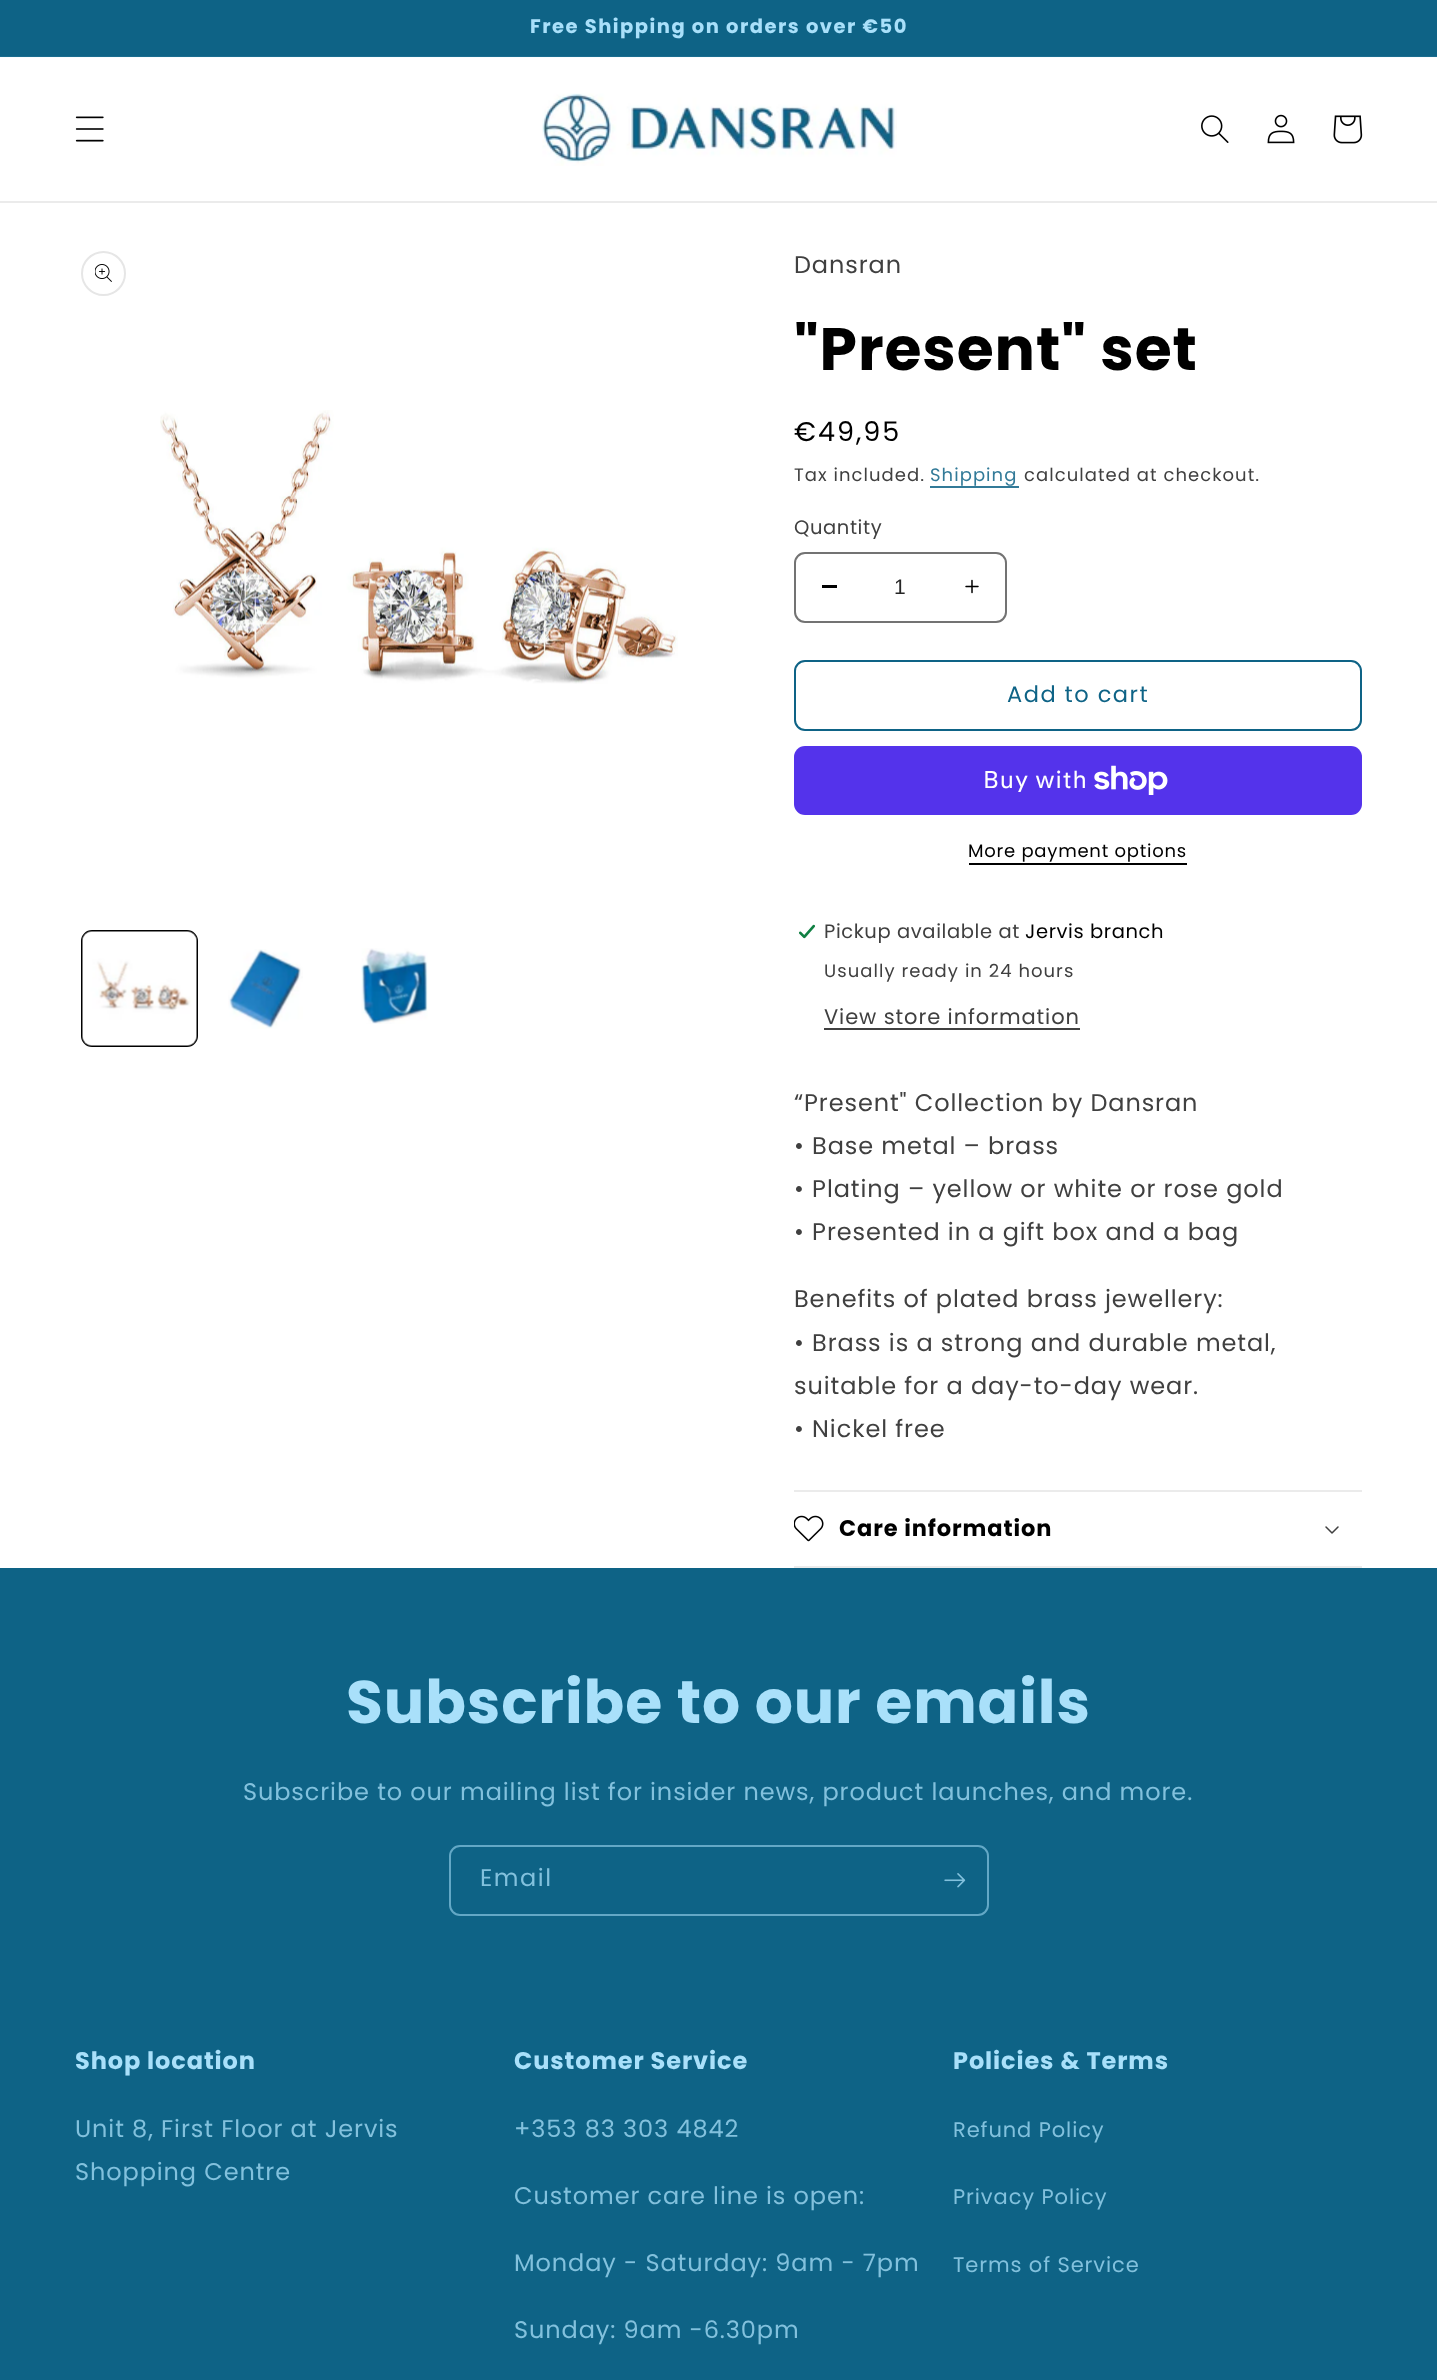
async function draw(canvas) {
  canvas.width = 1437;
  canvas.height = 2380;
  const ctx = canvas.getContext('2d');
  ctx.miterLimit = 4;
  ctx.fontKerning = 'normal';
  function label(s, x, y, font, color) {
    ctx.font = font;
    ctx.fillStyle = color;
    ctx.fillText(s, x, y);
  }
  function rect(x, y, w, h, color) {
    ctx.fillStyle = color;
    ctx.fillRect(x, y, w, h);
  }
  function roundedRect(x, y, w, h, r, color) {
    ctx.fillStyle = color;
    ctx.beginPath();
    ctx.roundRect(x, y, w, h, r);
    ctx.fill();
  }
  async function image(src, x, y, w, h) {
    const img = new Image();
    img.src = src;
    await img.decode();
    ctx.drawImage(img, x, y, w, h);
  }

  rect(0, 0, 1437, 2380, '#fff');
  rect(0, 57, 1437, 1, '#f8fdff');
  rect(0, 0, 1437, 56, '#0e6386');
  rect(0, 56, 1437, 1, '#1a6d8f');
  ctx.letterSpacing = '1.5px';
  label('Free Shipping on orders over €50', 530, 33, 'bold 19.5px Poppins', '#a9e0fa');
  rect(0, 201, 1437, 2, '#ebebeb');
  await image('assets/img1.png', 75, 116, 29, 26);
  await image('assets/img2.png', 542, 93, 355, 73);
  await image('assets/img3.png', 1201, 115, 28, 28);
  await image('assets/img4.png', 1267, 114, 28, 30);
  await image('assets/img5.png', 1333, 115, 30, 29);
  ctx.beginPath();
  ctx.arc(103.5, 273.5, 21.5, 0, 2 * Math.PI);
  ctx.strokeStyle = '#e6e6e6';
  ctx.lineWidth = 2;
  ctx.stroke();
  await image('assets/img6.png', 95, 264, 17, 18);
  await image('assets/img7.png', 160, 410, 518, 274);
  ctx.beginPath();
  ctx.roundRect(82, 931, 115, 115, 10);
  ctx.strokeStyle = '#000';
  ctx.stroke();
  await image('assets/img8.png', 82, 931, 115, 115);
  await image('assets/img9.png', 228, 949, 75, 80);
  await image('assets/img10.png', 361, 948, 67, 76);
  ctx.letterSpacing = '0.9px';
  label('Dansran', 794, 273, '24px Poppins', '#404040');
  label('"Present" set', 794, 370, 'bold 60px Poppins', '#000');
  ctx.letterSpacing = '2px';
  label('€49,95', 794, 441, '27px Poppins', '#000');
  ctx.letterSpacing = '1.05px';
  label('Tax included.', 794, 481, '18px Poppins', '#404040');
  label('Shipping', 930, 481, '18px Poppins', '#327a98');
  rect(930, 486, 89, 2, '#327a98');
  label('calculated at checkout.', 1024, 481, '18px Poppins', '#404040');
  ctx.letterSpacing = '0.6px';
  label('Quantity', 794, 534, '19.5px Poppins', '#404040');
  rect(822, 585, 15, 3, '#000');
  await image('assets/img11.png', 965, 579, 14, 15);
  ctx.beginPath();
  ctx.roundRect(795, 553, 211, 69, 10);
  ctx.strokeStyle = '#737373';
  ctx.stroke();
  ctx.letterSpacing = '0px';
  label('1', 894, 594, '21px Liberation Sans', '#262626');
  ctx.beginPath();
  ctx.roundRect(795, 661, 566, 69, 10);
  ctx.strokeStyle = '#0e6386';
  ctx.stroke();
  ctx.letterSpacing = '1.5px';
  label('Add to cart', 1007, 702, '22.5px Poppins', '#0e6386');
  roundedRect(794, 746, 568, 69, 11, '#5433eb');
  ctx.letterSpacing = '0.9px';
  label('Buy with', 983, 788, '24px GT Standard', '#fff');
  await image('assets/img12.png', 1094, 765, 74, 30);
  ctx.letterSpacing = '0.75px';
  label('More payment options', 968, 857, '18px Poppins', '#000');
  rect(969, 863, 218, 2, '#000');
  await image('assets/img13.png', 798, 924, 18, 15);
  ctx.letterSpacing = '0.6px';
  label('Pickup available at', 824, 938, '19.5px Poppins', '#404040');
  label('Jervis branch', 1025, 938, '19.5px Poppins', '#000');
  ctx.letterSpacing = '1.05px';
  label('Usually ready in 24 hours', 824, 977, '18px Poppins', '#404040');
  ctx.letterSpacing = '0.9px';
  label('View store information', 824, 1024, '21px Poppins', '#404040');
  rect(824, 1028, 256, 2, '#404040');
  label('“Present" Collection by Dansran', 794, 1111, '24px Poppins', '#404040');
  label('• Base metal – brass', 794, 1154, '24px Poppins', '#404040');
  label('• Plating – yellow or white or rose gold', 794, 1197, '24px Poppins', '#404040');
  label('• Presented in a gift box and a bag', 794, 1240, '24px Poppins', '#404040');
  label('Benefits of plated brass jewellery:', 794, 1307, '24px Poppins', '#404040');
  label('• Brass is a strong and durable metal,', 794, 1351, '24px Poppins', '#404040');
  label('suitable for a day-to-day wear.', 794, 1394, '24px Poppins', '#404040');
  label('• Nickel free', 794, 1437, '24px Poppins', '#404040');
  rect(794, 1490, 568, 2, '#ebebeb');
  rect(794, 1566, 568, 2, '#ebebeb');
  await image('assets/img14.png', 794, 1515, 30, 27);
  label('Care information', 839, 1536, 'bold 22.5px Poppins', '#000');
  await image('assets/img15.png', 1325, 1526, 14, 8);
  rect(0, 1568, 1437, 812, '#0e6386');
  label('Subscribe to our emails', 346, 1723, 'bold 60px Poppins', '#a9e0fa');
  label('Subscribe to our mailing list for insider news, product launches, and more.', 243, 1800, '24px Poppins', '#82c1dd');
  ctx.beginPath();
  ctx.roundRect(450, 1846, 538, 69, 10);
  ctx.strokeStyle = '#63a8c6';
  ctx.stroke();
  ctx.letterSpacing = '1.5px';
  label('Email', 480, 1886, '24px Poppins', '#82c1dd');
  await image('assets/img16.png', 944, 1873, 22, 15);
  ctx.letterSpacing = '0.9px';
  label('Shop location', 75, 2069, 'bold 24px Poppins', '#a9e0fa');
  label('Unit 8, First Floor at Jervis', 75, 2137, '24px Poppins', '#82c1dd');
  label('Shopping Centre', 75, 2180, '24px Poppins', '#82c1dd');
  label('Customer Service', 514, 2069, 'bold 24px Poppins', '#a9e0fa');
  label('+353 83 303 4842', 514, 2137, '24px Poppins', '#82c1dd');
  label('Customer care line is open:', 514, 2204, '24px Poppins', '#82c1dd');
  label('Monday - Saturday: 9am - 7pm', 514, 2271, '24px Poppins', '#82c1dd');
  label('Sunday: 9am -6.30pm', 514, 2338, '24px Poppins', '#82c1dd');
  label('Policies & Terms', 953, 2069, 'bold 24px Poppins', '#a9e0fa');
  label('Refund Policy', 953, 2137, '21px Poppins', '#82c1dd');
  label('Privacy Policy', 953, 2204, '21px Poppins', '#82c1dd');
  label('Terms of Service', 953, 2272, '21px Poppins', '#82c1dd');
}

draw(document.querySelector('canvas'));
